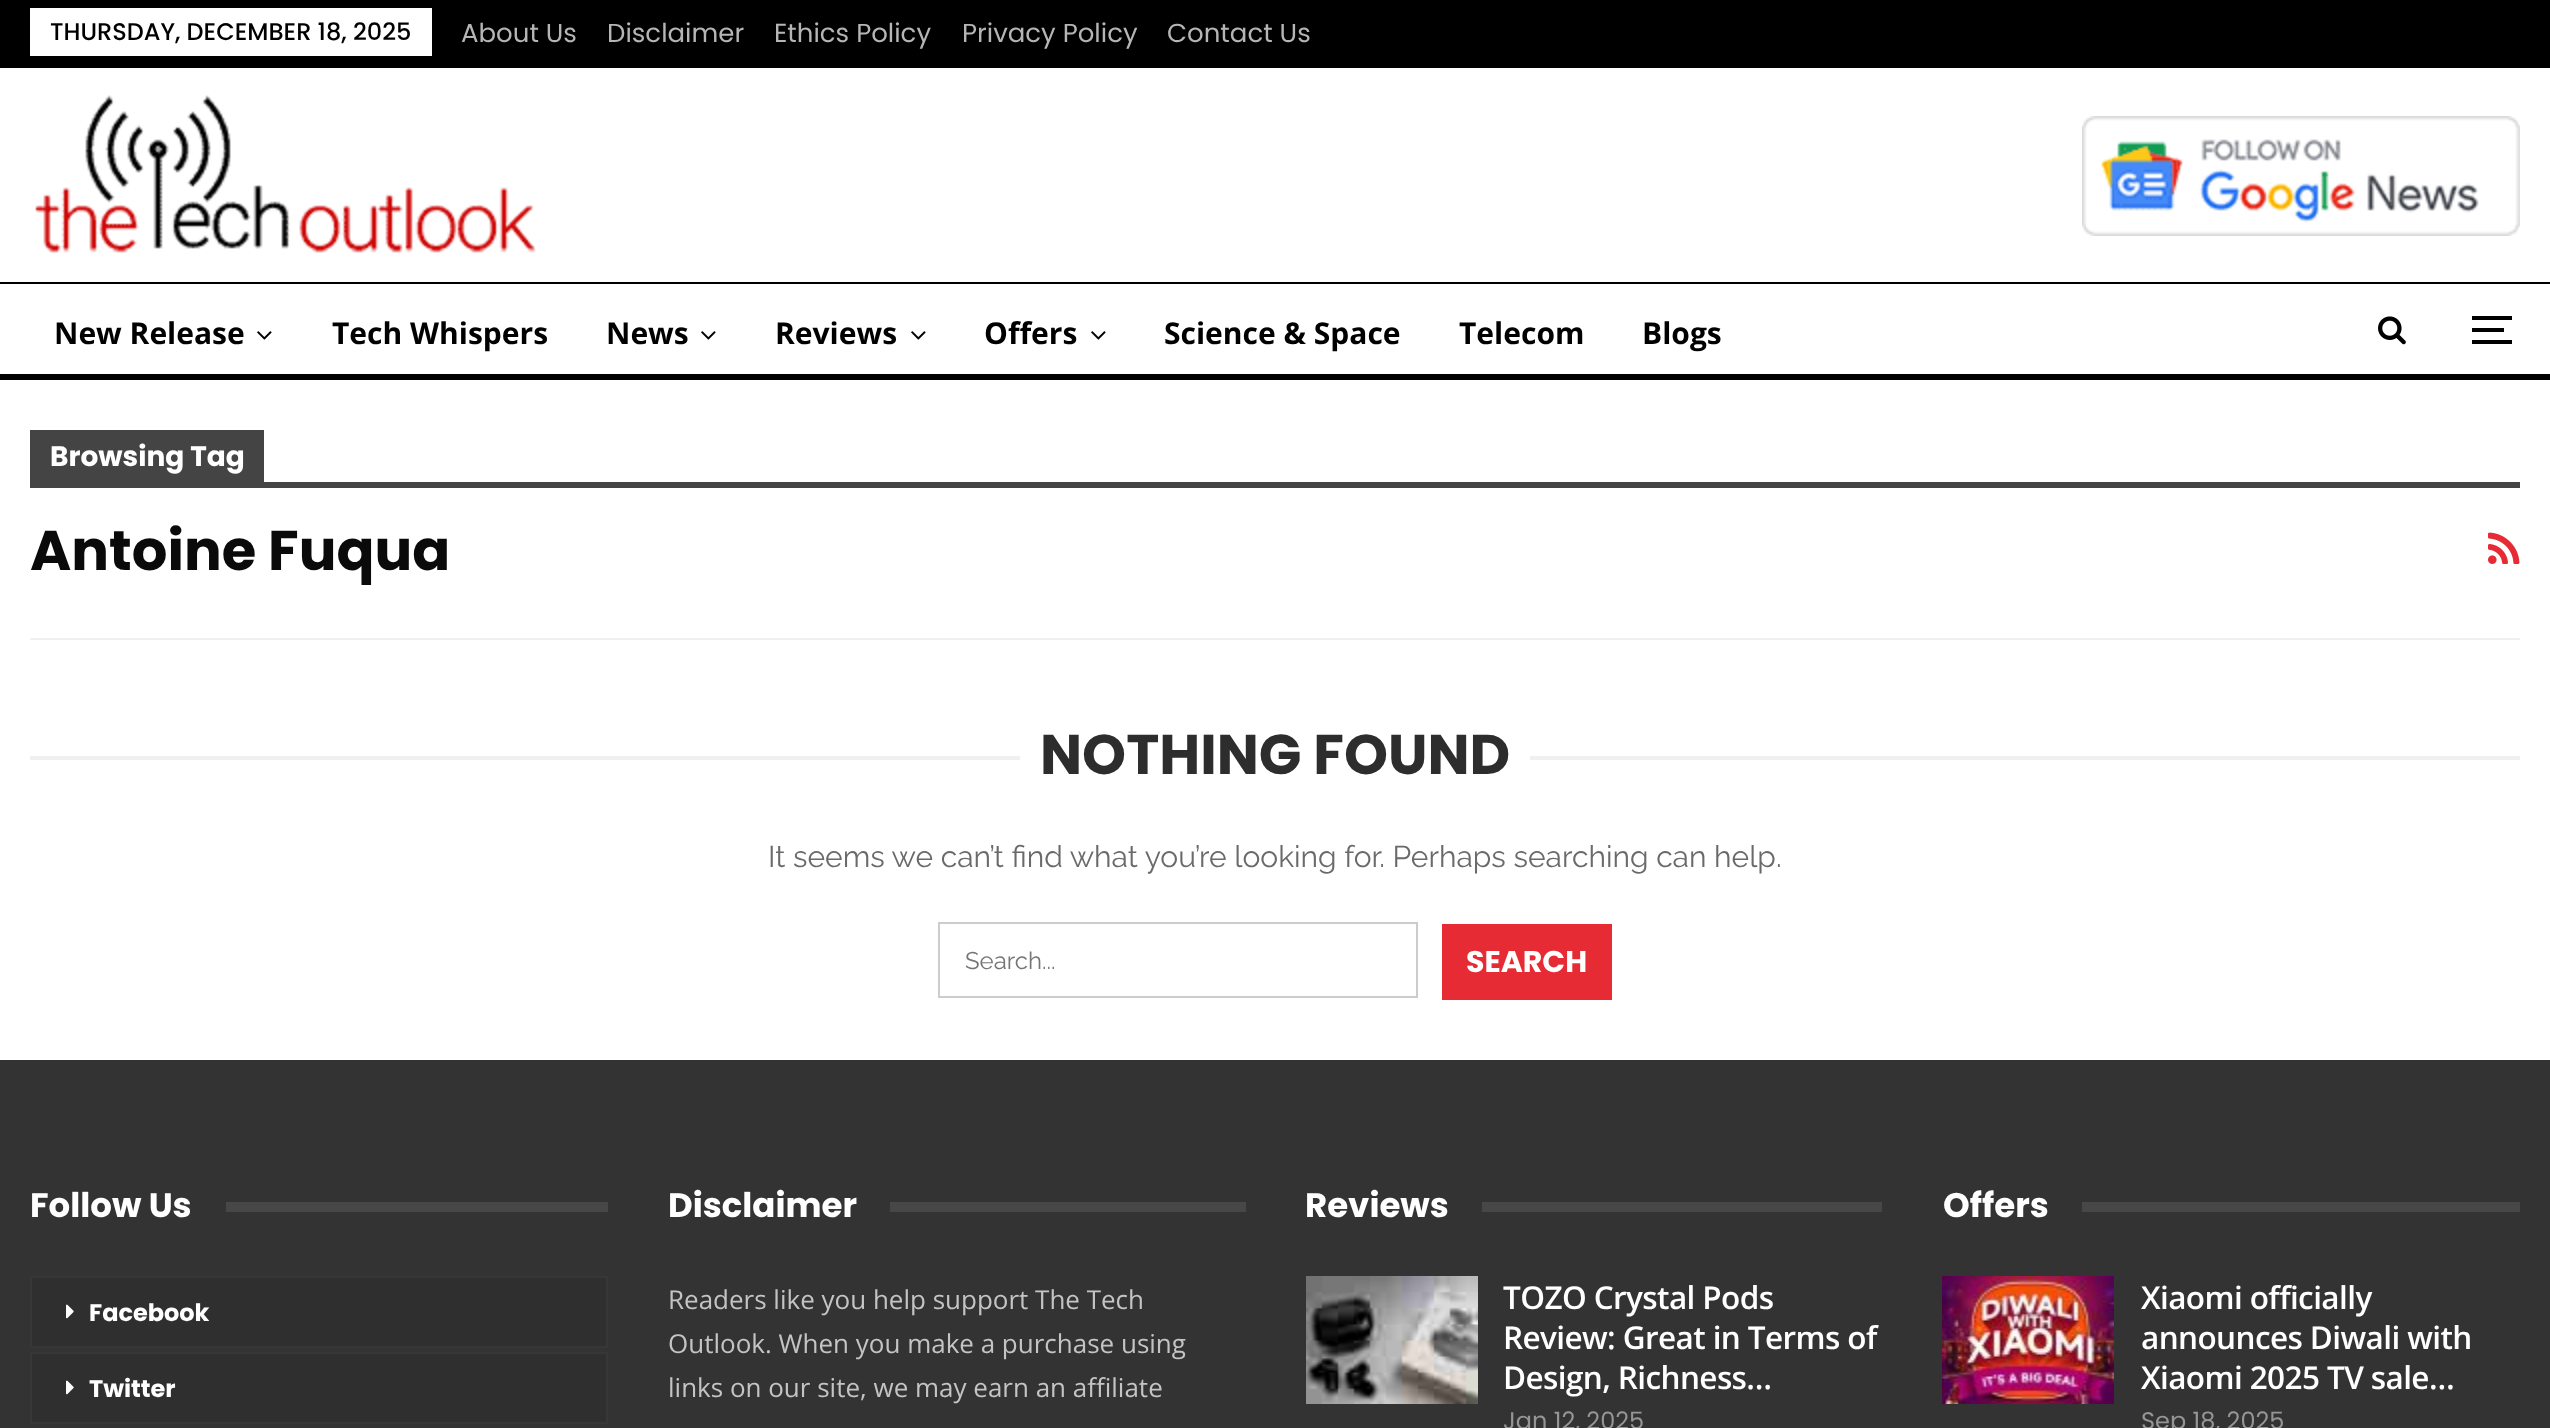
async function draw(canvas) {
  canvas.width = 2550;
  canvas.height = 1428;
  const ctx = canvas.getContext('2d');
  ctx.miterLimit = 4;
  ctx.fontKerning = 'normal';
  function label(s, x, y, font, color) {
    ctx.font = font;
    ctx.fillStyle = color;
    ctx.fillText(s, x, y);
  }
  function rect(x, y, w, h, color) {
    ctx.fillStyle = color;
    ctx.fillRect(x, y, w, h);
  }
  async function image(src, x, y, w, h) {
    const img = new Image();
    img.src = src;
    await img.decode();
    ctx.drawImage(img, x, y, w, h);
  }

  rect(0, 0, 2550, 1428, '#fff');
  rect(0, 0, 2550, 68, '#000');
  rect(30, 8, 402, 48, '#fff');
  label('THURSDAY, DECEMBER 18, 2025', 50, 40, '500 24px Poppins', '#000');
  label('About Us', 461, 42, '26px Poppins', '#b5b5b5');
  label('Disclaimer', 607, 42, '26px Poppins', '#b5b5b5');
  label('Ethics Policy', 774, 42, '26px Poppins', '#b5b5b5');
  label('Privacy Policy', 962, 42, '26px Poppins', '#b5b5b5');
  label('Contact Us', 1167, 42, '26px Poppins', '#b5b5b5');
  await image('assets/img1.png', 35, 95, 501, 158);
  await image('assets/img2.png', 2082, 116, 438, 120);
  rect(0, 282, 2550, 2, '#000');
  rect(0, 374, 2550, 6, '#000');
  label('New Release', 54, 344, 'bold 30px Open Sans', '#000');
  await image('assets/img3.png', 257, 331, 15, 9);
  label('Tech Whispers', 332, 344, 'bold 30px Open Sans', '#000');
  label('News', 606, 344, 'bold 30px Open Sans', '#000');
  await image('assets/img3.png', 701, 331, 15, 9);
  label('Reviews', 775, 344, 'bold 30px Open Sans', '#000');
  await image('assets/img3.png', 911, 331, 15, 9);
  label('Offers', 984, 344, 'bold 30px Open Sans', '#000');
  await image('assets/img3.png', 1091, 331, 15, 9);
  label('Science & Space', 1164, 344, 'bold 30px Open Sans', '#000');
  label('Telecom', 1459, 344, 'bold 30px Open Sans', '#000');
  label('Blogs', 1642, 344, 'bold 30px Open Sans', '#000');
  await image('assets/img4.png', 2378, 316, 28, 29);
  rect(2472, 328, 32, 4, '#000');
  rect(2472, 316, 40, 4, '#000');
  rect(2472, 340, 40, 4, '#000');
  rect(30, 638, 2490, 2, '#f0f0f0');
  rect(30, 430, 234, 52, '#444');
  label('Browsing Tag', 50, 466, 'bold 28px Poppins', '#fff');
  rect(30, 482, 2490, 6, '#444');
  label('Antoine Fuqua', 30, 570, 'bold 56px Poppins', '#0a0a0a');
  await image('assets/img5.png', 2488, 532, 32, 32);
  rect(30, 756, 2490, 4, '#f0f0f0');
  rect(1020, 756, 510, 4, '#fff');
  label('NOTHING FOUND', 1040, 774, 'bold 56px Poppins', '#2d2d2d');
  label('It seems we can’t find what you’re looking for. Perhaps searching can help.', 768, 867, '100 30px Raleway', '#6a6a6a');
  ctx.strokeStyle = '#ccc';
  ctx.lineWidth = 2;
  ctx.strokeRect(939, 923, 478, 74);
  label('Search...', 965, 969, '100 24px Raleway', '#757575');
  rect(1442, 924, 170, 76, '#e62b34');
  label('SEARCH', 1466, 972, 'bold 30px Poppins', '#fff');
  rect(0, 1060, 2550, 368, '#333');
  label('Follow Us', 30, 1217, 'bold 34px Poppins', '#fff');
  rect(226, 1202, 382, 10, '#474747');
  ctx.fillStyle = '#2f2f2f';
  ctx.beginPath();
  ctx.rect(31, 1277, 576, 70);
  ctx.fill();
  ctx.strokeStyle = '#373737';
  ctx.stroke();
  await image('assets/img6.png', 66, 1304, 8, 15);
  label('Facebook', 89, 1321, 'bold 24px Poppins', '#fff');
  ctx.fillStyle = '#2f2f2f';
  ctx.beginPath();
  ctx.rect(31, 1353, 576, 70);
  ctx.fill();
  ctx.stroke();
  await image('assets/img6.png', 66, 1380, 8, 15);
  label('Twitter', 89, 1397, 'bold 24px Poppins', '#fff');
  label('Disclaimer', 668, 1217, 'bold 34px Poppins', '#fff');
  rect(890, 1202, 356, 10, '#474747');
  label('Readers like you help support The Tech', 668, 1309, '26px Open Sans', '#c4c4c4');
  label('Outlook. When you make a purchase using', 668, 1353, '26px Open Sans', '#c4c4c4');
  label('links on our site, we may earn an affiliate', 668, 1397, '26px Open Sans', '#c4c4c4');
  label('Reviews', 1305, 1217, 'bold 34px Poppins', '#fff');
  rect(1482, 1202, 400, 10, '#474747');
  await image('assets/img7.png', 1306, 1276, 172, 128);
  ctx.letterSpacing = '-0.6px';
  label('TOZO Crystal Pods', 1503, 1309, '600 31.5px Open Sans', '#fff');
  label('Review: Great in Terms of', 1503, 1349, '600 31.5px Open Sans', '#fff');
  label('Design, Richness…', 1503, 1389, '600 31.5px Open Sans', '#fff');
  ctx.letterSpacing = '0px';
  label('Jan 12, 2025', 1503, 1429, '24px Poppins', '#959595');
  label('Offers', 1943, 1217, 'bold 34px Poppins', '#fff');
  rect(2082, 1202, 438, 10, '#474747');
  await image('assets/img8.png', 1942, 1276, 172, 128);
  ctx.letterSpacing = '-0.6px';
  label('Xiaomi officially', 2141, 1309, '600 31.5px Open Sans', '#fff');
  label('announces Diwali with', 2141, 1349, '600 31.5px Open Sans', '#fff');
  label('Xiaomi 2025 TV sale…', 2141, 1389, '600 31.5px Open Sans', '#fff');
  ctx.letterSpacing = '0px';
  label('Sep 18, 2025', 2141, 1429, '24px Poppins', '#959595');
}

draw(document.querySelector('canvas'));
